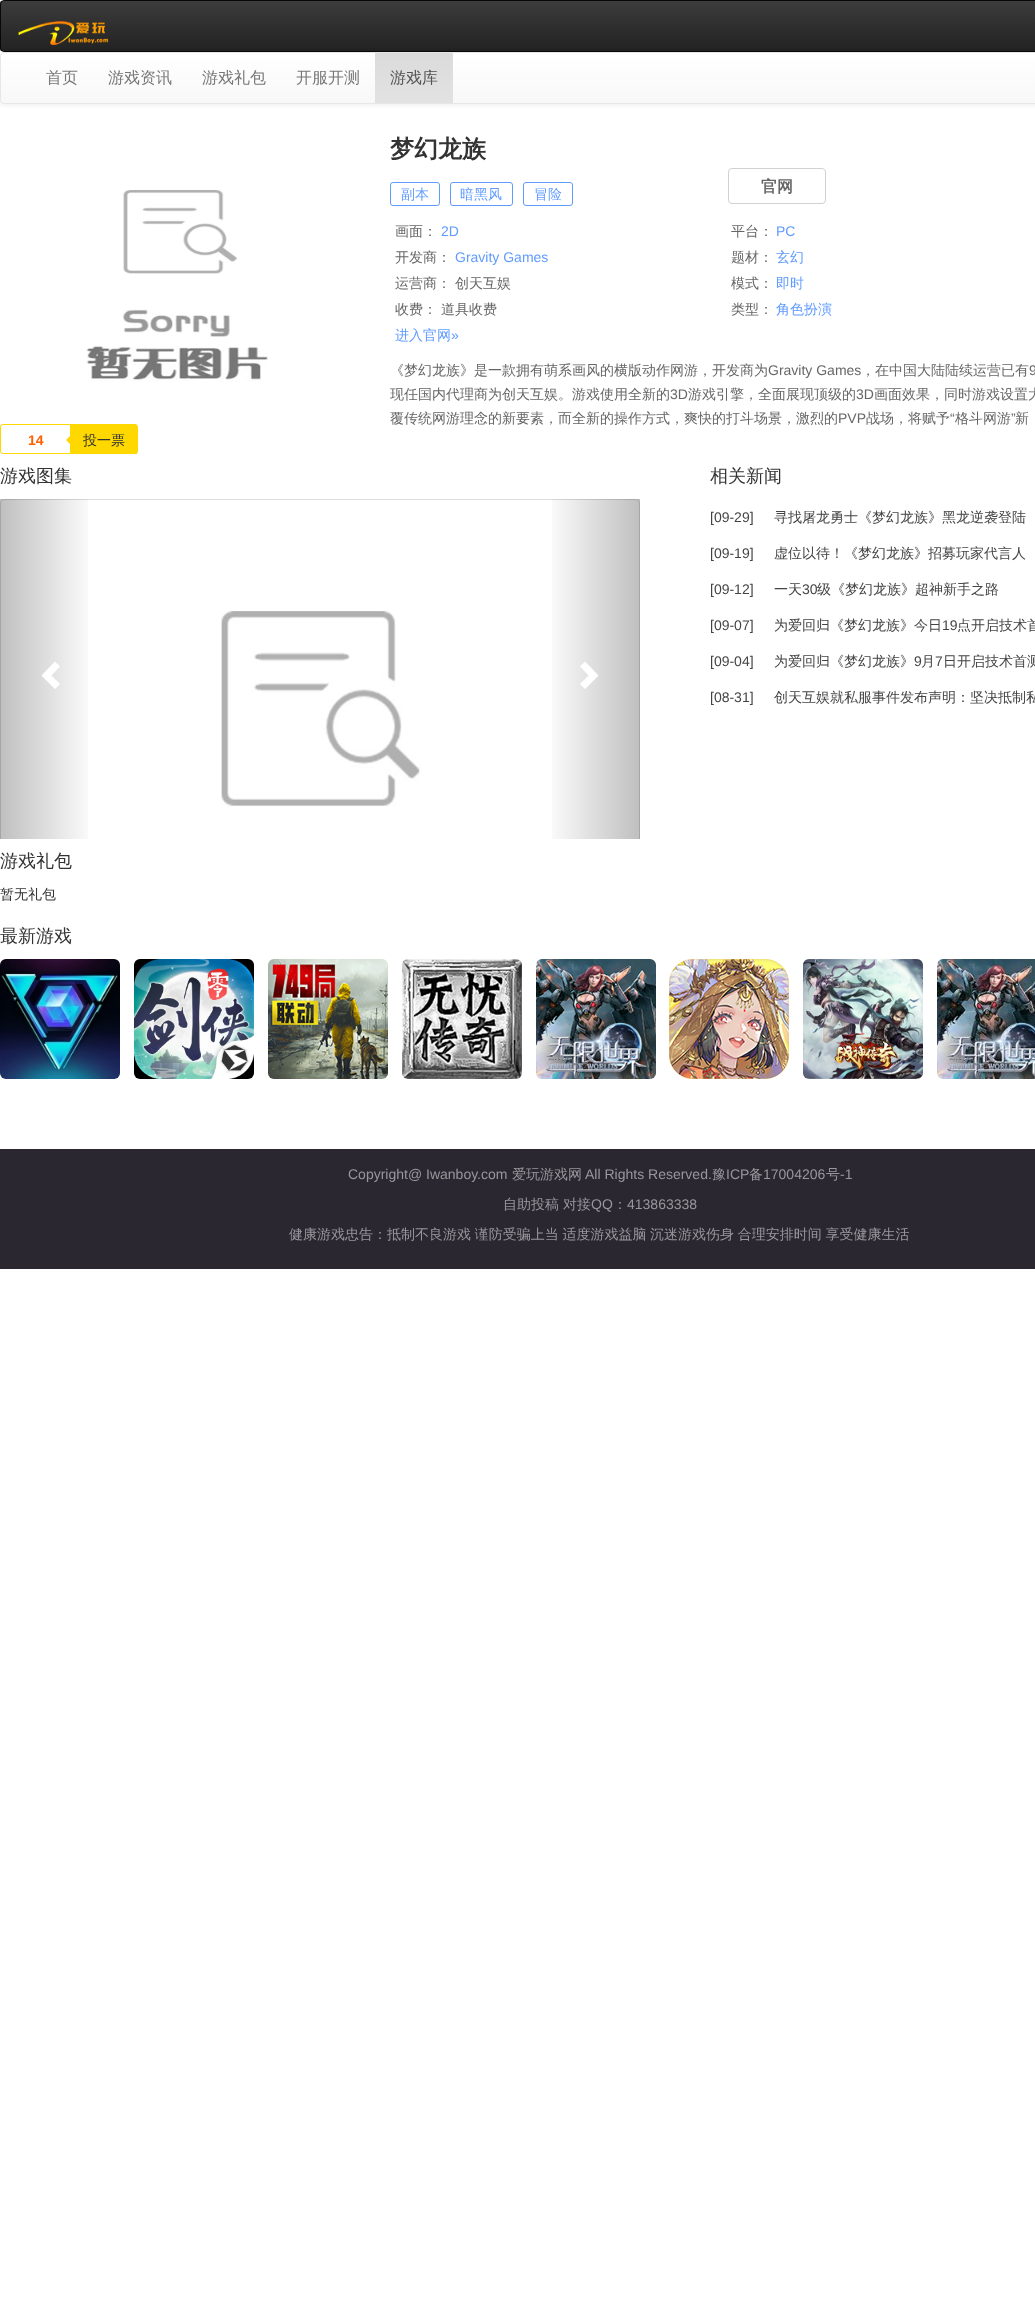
async function draw(canvas) {
  canvas.width = 1035;
  canvas.height = 2317;
  const ctx = canvas.getContext('2d');
  ctx.miterLimit = 4;
  ctx.fontKerning = 'normal';
  function label(s, x, y, font, color) {
    ctx.font = font;
    ctx.fillStyle = color;
    ctx.fillText(s, x, y);
  }
  function rect(x, y, w, h, color) {
    ctx.fillStyle = color;
    ctx.fillRect(x, y, w, h);
  }
  async function image(src, x, y, w, h) {
    const img = new Image();
    img.src = src;
    await img.decode();
    ctx.drawImage(img, x, y, w, h);
  }
  let gradient, path;

  rect(0, 0, 1035, 2317, '#fff');
  ctx.save();
  ctx.beginPath();
  ctx.roundRect(0, 0, 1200, 52, 4);
  ctx.clip();
  gradient = ctx.createLinearGradient(600, 1, 600, 51);
  gradient.addColorStop(0, '#3c3c3c');
  gradient.addColorStop(1, '#222');
  ctx.fillStyle = gradient;
  ctx.fillRect(0, 1, 1035, 50);
  ctx.restore();
  ctx.beginPath();
  ctx.roundRect(0.5, 0.5, 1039, 51, 3.5);
  ctx.strokeStyle = '#080808';
  ctx.stroke();
  await image('assets/img1.png', 18, 21, 91, 25);
  ctx.fillStyle = '#00000012';
  ctx.filter = 'blur(2.5px)';
  ctx.beginPath();
  ctx.roundRect(0, 53, 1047, 52, 4);
  ctx.fill();
  ctx.filter = 'none';
  ctx.save();
  ctx.beginPath();
  ctx.roundRect(0, 52, 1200, 52, 4);
  ctx.clip();
  gradient = ctx.createLinearGradient(600, 53, 600, 103);
  gradient.addColorStop(0, '#fff');
  gradient.addColorStop(1, '#f8f8f8');
  ctx.fillStyle = gradient;
  ctx.fillRect(0, 53, 1035, 50);
  ctx.restore();
  ctx.beginPath();
  ctx.roundRect(0.5, 52.5, 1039, 51, 3.5);
  ctx.strokeStyle = '#e7e7e7';
  ctx.stroke();
  label('首页', 46, 83, '500 16px WenQuanYi Zen Hei', '#777');
  label('游戏资讯', 108, 83, '500 16px WenQuanYi Zen Hei', '#777');
  label('游戏礼包', 202, 83, '500 16px WenQuanYi Zen Hei', '#777');
  label('开服开测', 296, 83, '500 16px WenQuanYi Zen Hei', '#777');
  gradient = ctx.createLinearGradient(414, 53, 414, 103);
  gradient.addColorStop(0, '#dbdbdb');
  gradient.addColorStop(1, '#e2e2e2');
  ctx.fillStyle = gradient;
  ctx.fillRect(375, 53, 78, 50);
  label('游戏库', 390, 83, '500 16px WenQuanYi Zen Hei', '#555');
  label('梦幻龙族', 390, 157, 'bold 24px WenQuanYi Zen Hei', '#333');
  ctx.beginPath();
  ctx.roundRect(390.5, 182.5, 49, 23, 2.5);
  ctx.strokeStyle = '#609bff';
  ctx.stroke();
  label('副本', 401, 199, '500 14px WenQuanYi Zen Hei', '#609bff');
  ctx.beginPath();
  ctx.roundRect(450.5, 182.5, 62, 23, 2.5);
  ctx.stroke();
  label('暗黑风', 460, 199, '500 14px WenQuanYi Zen Hei', '#609bff');
  ctx.beginPath();
  ctx.roundRect(523.5, 182.5, 49, 23, 2.5);
  ctx.stroke();
  label('冒险', 534, 199, '500 14px WenQuanYi Zen Hei', '#609bff');
  ctx.beginPath();
  ctx.roundRect(728.5, 168.5, 97, 35, 3.5);
  ctx.strokeStyle = '#d1d1d1';
  ctx.stroke();
  label('官网', 761, 192, 'bold 16px WenQuanYi Zen Hei', '#666');
  label('画面：', 395, 236, '500 14px WenQuanYi Zen Hei', '#666');
  label('2D', 441, 236, '14px Liberation Sans', '#609bff');
  label('平台：', 731, 236, '500 14px WenQuanYi Zen Hei', '#666');
  label('PC', 776, 236, '14px Liberation Sans', '#609bff');
  label('开发商：', 395, 262, '500 14px WenQuanYi Zen Hei', '#666');
  label('Gravity Games', 455, 262, '14px Liberation Sans', '#609bff');
  label('题材：', 731, 262, '500 14px WenQuanYi Zen Hei', '#666');
  label('玄幻', 776, 262, '500 14px WenQuanYi Zen Hei', '#609bff');
  label('运营商：', 395, 288, '500 14px WenQuanYi Zen Hei', '#666');
  label('创天互娱', 455, 288, '500 14px WenQuanYi Zen Hei', '#666');
  label('模式：', 731, 288, '500 14px WenQuanYi Zen Hei', '#666');
  label('即时', 776, 288, '500 14px WenQuanYi Zen Hei', '#609bff');
  label('收费：', 395, 314, '500 14px WenQuanYi Zen Hei', '#666');
  label('道具收费', 441, 314, '500 14px WenQuanYi Zen Hei', '#666');
  label('类型：', 731, 314, '500 14px WenQuanYi Zen Hei', '#666');
  label('角色扮演', 776, 314, '500 14px WenQuanYi Zen Hei', '#609bff');
  label('进入官网', 395, 340, '500 14px WenQuanYi Zen Hei', '#609bff');
  label('»', 451, 340, '14px Liberation Sans', '#609bff');
  label('《梦幻龙族》是一款拥有萌系画风的横版动作网游，开发商为', 390, 375, '500 14px WenQuanYi Zen Hei', '#666');
  label('Gravity Games', 768, 375, '14px Liberation Sans', '#666');
  label('，在中国大陆陆续运营已有', 861, 375, '500 14px WenQuanYi Zen Hei', '#666');
  label('9', 1029, 375, '14px Liberation Sans', '#666');
  label('现任国内代理商为创天互娱。游戏使用全新的', 390, 399, '500 14px WenQuanYi Zen Hei', '#666');
  label('3D', 670, 399, '14px Liberation Sans', '#666');
  label('游戏引擎，全面展现顶级的', 688, 399, '500 14px WenQuanYi Zen Hei', '#666');
  label('3D', 856, 399, '14px Liberation Sans', '#666');
  label('画面效果，同时游戏设置大', 874, 399, '500 14px WenQuanYi Zen Hei', '#666');
  label('覆传统网游理念的新要素，而全新的操作方式，爽快的打斗场景，激烈的', 390, 423, '500 14px WenQuanYi Zen Hei', '#666');
  label('PVP', 838, 423, '14px Liberation Sans', '#666');
  label('战场，将赋予', 866, 423, '500 14px WenQuanYi Zen Hei', '#666');
  label('“', 950, 423, '14px Liberation Sans', '#666');
  label('格斗网游', 955, 423, '500 14px WenQuanYi Zen Hei', '#666');
  label('”', 1011, 423, '14px Liberation Sans', '#666');
  label('新', 1015, 423, '500 14px WenQuanYi Zen Hei', '#666');
  await image('assets/img2.png', 86, 190, 182, 192);
  ctx.beginPath();
  ctx.roundRect(0.5, 424.5, 137, 29, 2.5);
  ctx.strokeStyle = '#ffd800';
  ctx.stroke();
  label('14', 28, 445, 'bold 14px Liberation Sans', '#ff6000');
  rect(70, 425, 67, 29, '#ffd800');
  path = new Path2D('M70 436V444L66 440Z');
  ctx.fill(path);
  label('投一票', 83, 445, '500 14px WenQuanYi Zen Hei', '#333');
  label('游戏图集', 0, 482, '500 18px WenQuanYi Zen Hei', '#333');
  label('游戏礼包', 0, 867, '500 18px WenQuanYi Zen Hei', '#333');
  label('暂无礼包', 0, 899, '500 14px WenQuanYi Zen Hei', '#333');
  label('最新游戏', 0, 942, '500 18px WenQuanYi Zen Hei', '#333');
  await image('assets/img4.png', 0, 959, 120, 120);
  await image('assets/img5.png', 134, 959, 120, 120);
  await image('assets/img6.png', 268, 959, 120, 120);
  await image('assets/img7.png', 402, 959, 120, 120);
  await image('assets/img8.png', 536, 959, 120, 120);
  ctx.save();
  ctx.beginPath();
  ctx.rect(0, 499, 640, 340);
  ctx.clip();
  ctx.beginPath();
  ctx.roundRect(0.5, 499.5, 639, 639, 3.5);
  ctx.strokeStyle = '#ddd';
  ctx.stroke();
  ctx.restore();
  await image('assets/img3.png', 221, 611, 199, 195);
  gradient = ctx.createLinearGradient(0, 669, 96, 669);
  gradient.addColorStop(0, '#00000040');
  gradient.addColorStop(1, '#00000000');
  ctx.fillStyle = gradient;
  ctx.fillRect(0, 499, 88, 340);
  ctx.fillStyle = '#fff';
  path = new Path2D('M60 666.5L51.5 675.5L60 684L55 689L41.5 675.5L55 661.5Z');
  ctx.fill(path);
  gradient = ctx.createLinearGradient(544, 669, 640, 669);
  gradient.addColorStop(0, '#00000000');
  gradient.addColorStop(1, '#00000040');
  ctx.fillStyle = gradient;
  ctx.fillRect(552, 499, 88, 340);
  ctx.fillStyle = '#fff';
  path = new Path2D('M598.5 675.5L585 689L580 684L588.5 675.5L580 666.5L585 661.5Z');
  ctx.fill(path);
  label('相关新闻', 710, 482, '500 18px WenQuanYi Zen Hei', '#333');
  label('[09-29]', 710, 522, '14px Liberation Sans', '#444');
  label('寻找屠龙勇士《梦幻龙族》黑龙逆袭登陆', 774, 522, '500 14px WenQuanYi Zen Hei', '#444');
  label('[09-19]', 710, 558, '14px Liberation Sans', '#444');
  label('虚位以待！《梦幻龙族》招募玩家代言人', 774, 558, '500 14px WenQuanYi Zen Hei', '#444');
  label('[09-12]', 710, 594, '14px Liberation Sans', '#444');
  label('一天', 774, 594, '500 14px WenQuanYi Zen Hei', '#444');
  label('30', 802, 594, '14px Liberation Sans', '#444');
  label('级《梦幻龙族》超神新手之路', 817, 594, '500 14px WenQuanYi Zen Hei', '#444');
  label('[09-07]', 710, 630, '14px Liberation Sans', '#444');
  label('为爱回归《梦幻龙族》今日', 774, 630, '500 14px WenQuanYi Zen Hei', '#444');
  label('19', 942, 630, '14px Liberation Sans', '#444');
  label('点开启技术首', 957, 630, '500 14px WenQuanYi Zen Hei', '#444');
  label('[09-04]', 710, 666, '14px Liberation Sans', '#444');
  label('为爱回归《梦幻龙族》', 774, 666, '500 14px WenQuanYi Zen Hei', '#444');
  label('9', 914, 666, '14px Liberation Sans', '#444');
  label('月', 921, 666, '500 14px WenQuanYi Zen Hei', '#444');
  label('7', 935, 666, '14px Liberation Sans', '#444');
  label('日开启技术首测', 943, 666, '500 14px WenQuanYi Zen Hei', '#444');
  label('[08-31]', 710, 702, '14px Liberation Sans', '#444');
  label('创天互娱就私服事件发布声明：坚决抵制私', 774, 702, '500 14px WenQuanYi Zen Hei', '#444');
  await image('assets/img9.png', 669, 959, 120, 120);
  await image('assets/img10.png', 803, 959, 120, 120);
  await image('assets/img11.png', 937, 959, 98, 120);
  rect(0, 1149, 1035, 120, '#2a2730');
  label('Copyright@ Iwanboy.com', 348, 1179, '14px Liberation Sans', '#99979c');
  label('爱玩游戏网', 512, 1179, '500 14px WenQuanYi Zen Hei', '#99979c');
  label('All Rights Reserved.', 585, 1179, '14px Liberation Sans', '#99979c');
  label('豫', 712, 1179, '500 14px WenQuanYi Zen Hei', '#99979c');
  label('ICP', 726, 1179, '14px Liberation Sans', '#99979c');
  label('备', 749, 1179, '500 14px WenQuanYi Zen Hei', '#99979c');
  label('17004206', 763, 1179, '14px Liberation Sans', '#99979c');
  label('号', 826, 1179, '500 14px WenQuanYi Zen Hei', '#99979c');
  label('-1', 840, 1179, '14px Liberation Sans', '#99979c');
  label('自助投稿', 503, 1209, '500 14px WenQuanYi Zen Hei', '#99979c');
  label('对接', 563, 1209, '500 14px WenQuanYi Zen Hei', '#99979c');
  label('QQ', 591, 1209, '14px Liberation Sans', '#99979c');
  label('：', 613, 1209, '500 14px WenQuanYi Zen Hei', '#99979c');
  label('413863338', 627, 1209, '14px Liberation Sans', '#99979c');
  ctx.wordSpacing = '-0.5px';
  label('健康游戏忠告：抵制不良游戏 谨防受骗上当 适度游戏益脑 沉迷游戏伤身 合理安排时间 享受健康生活', 289, 1239, '500 14px WenQuanYi Zen Hei', '#99979c');
}

draw(document.querySelector('canvas'));
